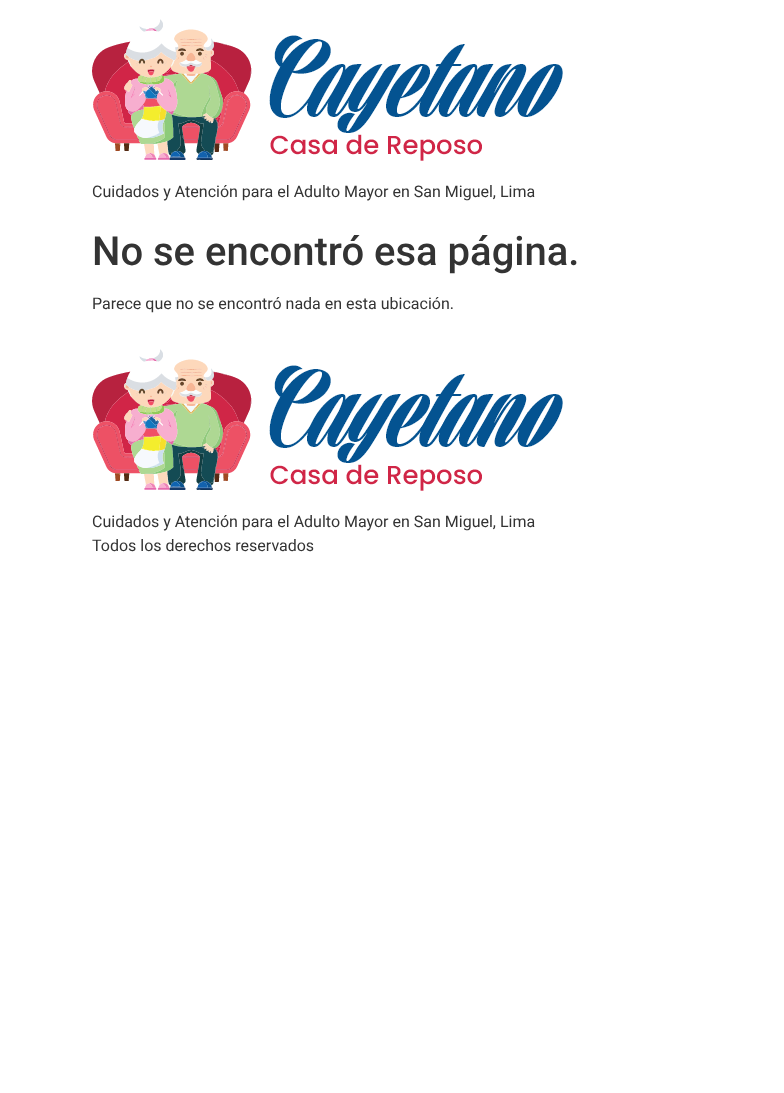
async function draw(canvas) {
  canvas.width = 784;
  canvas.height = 1093;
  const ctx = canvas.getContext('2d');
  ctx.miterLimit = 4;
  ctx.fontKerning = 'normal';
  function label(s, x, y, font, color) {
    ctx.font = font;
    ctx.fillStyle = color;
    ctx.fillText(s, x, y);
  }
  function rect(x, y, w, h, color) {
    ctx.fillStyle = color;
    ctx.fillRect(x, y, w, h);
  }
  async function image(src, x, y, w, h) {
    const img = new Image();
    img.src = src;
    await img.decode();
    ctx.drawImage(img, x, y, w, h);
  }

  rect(0, 0, 784, 1093, '#fff');
  await image('assets/img1.png', 92, 19, 471, 142);
  label('Cuidados y Atención para el Adulto Mayor en San Miguel, Lima', 92, 197, '16px Roboto', '#333');
  label('No se encontró esa página.', 92, 265, '500 40px Roboto', '#333');
  label('Parece que no se encontró nada en esta ubicación.', 92, 309, '16px Roboto', '#333');
  await image('assets/img1.png', 92, 349, 471, 142);
  label('Cuidados y Atención para el Adulto Mayor en San Miguel, Lima', 92, 527, '16px Roboto', '#333');
  label('Todos los derechos reservados', 92, 551, '16px Roboto', '#333');
}

draw(document.querySelector('canvas'));
